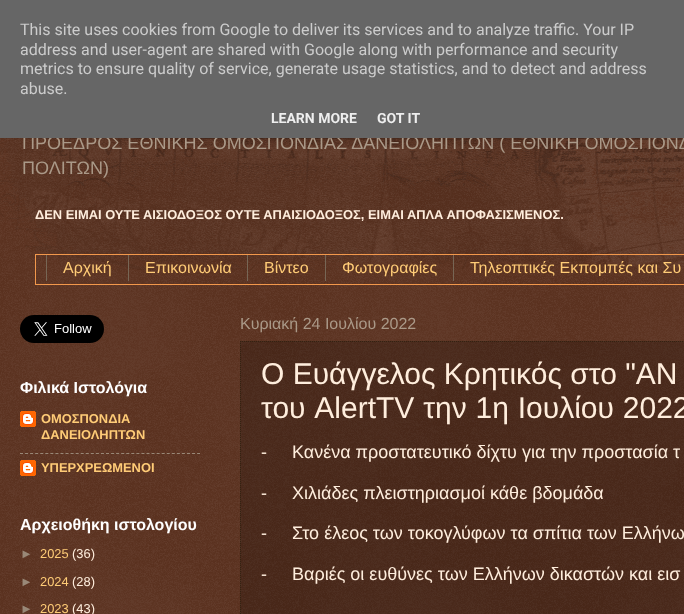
async function draw(canvas) {
  canvas.width = 684;
  canvas.height = 614;
  const ctx = canvas.getContext('2d');
  ctx.miterLimit = 4;
  ctx.fontKerning = 'normal';
  function label(s, x, y, font, color) {
    ctx.font = font;
    ctx.fillStyle = color;
    ctx.fillText(s, x, y);
  }
  function rect(x, y, w, h, color) {
    ctx.fillStyle = color;
    ctx.fillRect(x, y, w, h);
  }
  async function image(src, x, y, w, h) {
    const img = new Image();
    img.src = src;
    await img.decode();
    ctx.drawImage(img, x, y, w, h);
  }
  let path;

  rect(0, 0, 684, 614, '#441500');
  await image('assets/img1.png', 0, 138, 684, 476);
  await image('assets/img5.png', 0, 138, 684, 132);
  label('ΠΡΟΕΔΡΟΣ ΕΘΝΙΚΗΣ ΟΜΟΣΠΟΝΔΙΑΣ ΔΑΝΕΙΟΛΗΠΤΩΝ ( ΕΘΝΙΚΗ ΟΜΟΣΠΟΝΔ', 22, 149, '18.05px Liberation Sans', '#a98');
  rect(0, 0, 684, 138, '#666');
  label('This site uses cookies from Google to deliver its services and to analyze traffic. Your IP', 20, 35, '16px Roboto', '#ccc');
  label('address and user-agent are shared with Google along with performance and security', 20, 55, '16px Roboto', '#ccc');
  label('metrics to ensure quality of service, generate usage statistics, and to detect and address', 20, 74, '16px Roboto', '#ccc');
  label('abuse.', 20, 94, '16px Roboto', '#ccc');
  label('LEARN MORE', 271, 123, 'bold 14px Roboto', '#eee');
  label('GOT IT', 377, 123, 'bold 14px Roboto', '#eee');
  label('ΠΟΛΙΤΩΝ)', 22, 174, '18.05px Liberation Sans', '#a98');
  label('ΔΕΝ ΕΙΜΑΙ ΟΥΤΕ ΑΙΣΙΟΔΟΞΟΣ ΟΥΤΕ ΑΠΑΙΣΙΟΔΟΞΟΣ, ΕΙΜΑΙ ΑΠΛΑ ΑΠΟΦΑΣΙΣΜΕΝΟΣ.', 35, 219, 'bold 12.9px Liberation Sans', '#fed');
  ctx.strokeStyle = '#f2984c';
  ctx.strokeRect(35.5, 254.5, 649, 30);
  rect(128, 255, 1, 26, '#765');
  rect(46, 255, 1, 26, '#765');
  label('Αρχική', 63, 273, '16px Liberation Sans', '#fc7');
  rect(247, 255, 1, 26, '#765');
  label('Επικοινωνία', 145, 273, '16px Liberation Sans', '#fc7');
  rect(325, 255, 1, 26, '#765');
  label('Βίντεο', 264, 273, '16px Liberation Sans', '#fc7');
  rect(453, 255, 1, 26, '#765');
  label('Φωτογραφίες', 342, 273, '16px Liberation Sans', '#fc7');
  label('Τηλεοπτικές Εκπομπές και Συ', 470, 273, '16px Liberation Sans', '#fc7');
  await image('assets/img2.png', 20, 315, 84, 28);
  label('Φιλικά Ιστολόγια', 20, 393, 'bold 16px Liberation Sans', '#fff');
  await image('assets/img3.png', 20, 411, 16, 16);
  label('ΟΜΟΣΠΟΝΔΙΑ', 41, 423, 'bold 12.9px Liberation Sans', '#fc7');
  label('ΔΑΝΕΙΟΛΗΠΤΩΝ', 41, 439, 'bold 12.9px Liberation Sans', '#fc7');
  path = new Path2D('M20 453.5H200');
  ctx.strokeStyle = '#987';
  ctx.setLineDash([3, 2.06]);
  ctx.stroke(path);
  await image('assets/img4.png', 20, 460, 16, 16);
  label('ΥΠΕΡΧΡΕΩΜΕΝΟΙ', 41, 472, 'bold 12.9px Liberation Sans', '#fc7');
  label('Αρχειοθήκη ιστολογίου', 20, 530, 'bold 16px Liberation Sans', '#fff');
  label('►', 20, 558, '12.9px Liberation Sans', '#987');
  label('2025', 40, 558, '12.9px Liberation Sans', '#fc7');
  label('(36)', 72, 558, '12.9px Liberation Sans', '#fed');
  label('►', 20, 586, '12.9px Liberation Sans', '#987');
  label('2024', 40, 586, '12.9px Liberation Sans', '#fc7');
  label('(28)', 72, 586, '12.9px Liberation Sans', '#fed');
  label('►', 20, 613, '12.9px Liberation Sans', '#987');
  label('2023', 40, 613, '12.9px Liberation Sans', '#fc7');
  label('(43)', 72, 613, '12.9px Liberation Sans', '#fed');
  label('Κυριακή 24 Ιουλίου 2022', 240, 329, '16px Liberation Sans', '#a98');
  rect(240, 341, 444, 273, '#00000033');
  path = new Path2D('M240 341.5H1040');
  ctx.strokeStyle = '#321';
  ctx.setLineDash([1, 1]);
  ctx.stroke(path);
  path = new Path2D('M240.5 341V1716');
  ctx.stroke(path);
  label('Ο Ευάγγελος Κρητικός στο "ΑΝ', 261, 384, '30px Liberation Sans', '#fed');
  ctx.wordSpacing = '0.5px';
  label('του AlertTV την 1η Ιουλίου 2022', 261, 418, '30px Liberation Sans', '#fed');
  ctx.wordSpacing = '0px';
  label('-     Κανένα προστατευτικό δίχτυ για την προστασία τ', 261, 458, '18px Liberation Sans', '#fed');
  label('-     Χιλιάδες πλειστηριασμοί κάθε βδομάδα', 261, 499, '18px Liberation Sans', '#fed');
  label('-     Στο έλεος των τοκογλύφων τα σπίτια των Ελλήνω', 261, 539, '18px Liberation Sans', '#fed');
  label('-     Βαριές οι ευθύνες των Ελλήνων δικαστών και εισ', 261, 580, '18px Liberation Sans', '#fed');
}

draw(document.querySelector('canvas'));
